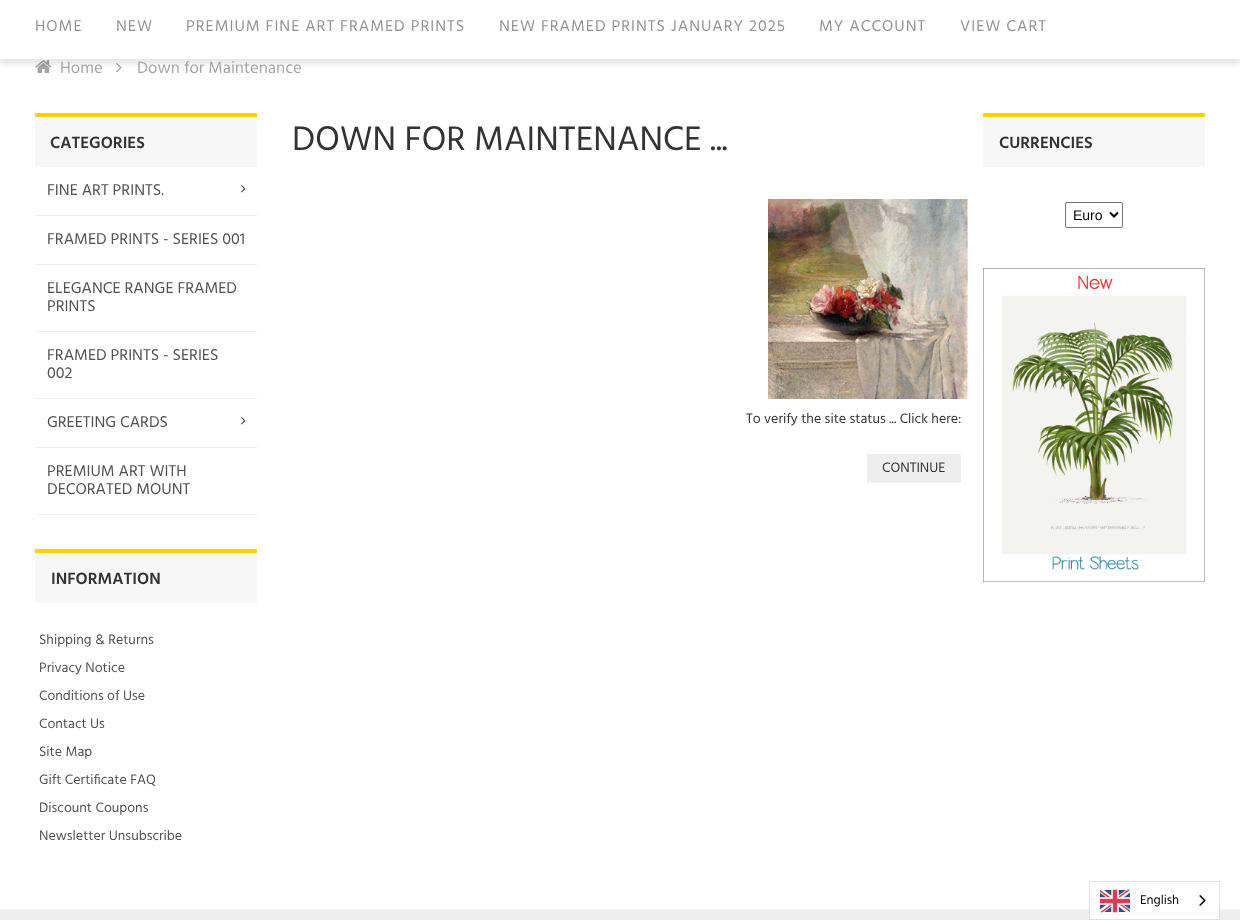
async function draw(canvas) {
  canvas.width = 1240;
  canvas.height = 920;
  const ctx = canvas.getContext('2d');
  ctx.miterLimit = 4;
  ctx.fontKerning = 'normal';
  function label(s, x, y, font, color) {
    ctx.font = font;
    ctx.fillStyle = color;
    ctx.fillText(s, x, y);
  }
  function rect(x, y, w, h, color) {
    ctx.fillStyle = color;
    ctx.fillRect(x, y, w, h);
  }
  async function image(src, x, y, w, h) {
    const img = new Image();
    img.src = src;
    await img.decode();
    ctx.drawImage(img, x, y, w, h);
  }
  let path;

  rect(0, 0, 1240, 920, '#fff');
  await image('assets/img1.png', 35, 60, 17, 13);
  await image('assets/img2.png', 116, 63, 6, 10);
  ctx.save();
  ctx.beginPath();
  ctx.rect(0, 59, 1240, 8);
  ctx.clip();
  ctx.fillStyle = '#0000001a';
  ctx.filter = 'blur(3px)';
  ctx.beginPath();
  ctx.rect(0, 5, 1240, 59);
  ctx.fill();
  ctx.filter = 'none';
  ctx.restore();
  ctx.letterSpacing = '1px';
  label('HOME', 35, 31, '16.1px Hind', '#939393');
  label('NEW', 116, 31, '16.1px Hind', '#939393');
  label('PREMIUM FINE ART FRAMED PRINTS', 186, 31, '16.1px Hind', '#939393');
  label('NEW FRAMED PRINTS JANUARY 2025', 499, 31, '16.1px Hind', '#939393');
  label('MY ACCOUNT', 819, 31, '16.1px Hind', '#939393');
  label('VIEW CART', 960, 31, '16.1px Hind', '#939393');
  ctx.letterSpacing = '0px';
  label('Home', 60, 73, '16.75px Hind', '#a5a5a5');
  label('Down for Maintenance', 137, 73, '16.75px Hind', '#a5a5a5');
  rect(35, 117, 222, 50, '#f7f7f7');
  rect(35, 113, 222, 4, '#ffd100');
  label('CATEGORIES', 50, 148, '600 16.75px Hind', '#333');
  rect(35, 215, 222, 1, '#eee');
  label('FINE ART PRINTS.', 47, 195, '16.1px Hind', '#525151');
  await image('assets/img3.png', 241, 185, 5, 8);
  rect(35, 264, 222, 1, '#eee');
  label('FRAMED PRINTS - SERIES 001', 47, 244, '16.1px Hind', '#525151');
  rect(35, 331, 222, 1, '#eee');
  label('ELEGANCE RANGE FRAMED', 47, 293, '16.1px Hind', '#525151');
  label('PRINTS', 47, 311, '16.1px Hind', '#525151');
  rect(35, 398, 222, 1, '#eee');
  label('FRAMED PRINTS - SERIES', 47, 360, '16.1px Hind', '#525151');
  label('002', 47, 378, '16.1px Hind', '#525151');
  rect(35, 447, 222, 1, '#eee');
  label('GREETING CARDS', 47, 427, '16.1px Hind', '#525151');
  await image('assets/img3.png', 241, 417, 5, 8);
  label('PREMIUM ART WITH', 47, 476, '16.1px Hind', '#525151');
  label('DECORATED MOUNT', 47, 494, '16.1px Hind', '#525151');
  rect(35, 514, 222, 1, '#eee');
  rect(35, 553, 222, 50, '#f7f7f7');
  rect(35, 549, 222, 4, '#ffd100');
  label('INFORMATION', 51, 584, '600 16.75px Hind', '#333');
  label('Shipping & Returns', 39, 644, '14px Hind', '#525151');
  label('Privacy Notice', 39, 672, '14px Hind', '#525151');
  label('Conditions of Use', 39, 700, '14px Hind', '#525151');
  label('Contact Us', 39, 728, '14px Hind', '#525151');
  label('Site Map', 39, 756, '14px Hind', '#525151');
  label('Gift Certificate FAQ', 39, 784, '14px Hind', '#525151');
  label('Discount Coupons', 39, 812, '14px Hind', '#525151');
  label('Newsletter Unsubscribe', 39, 840, '14px Hind', '#525151');
  label('DOWN FOR MAINTENANCE ...', 292, 150, '35px Hind', '#333');
  await image('assets/img4.png', 768, 199, 200, 200);
  label('To verify the site status ... Click here:', 746, 423, '14px Hind', '#333');
  rect(867, 454, 94, 29, '#eee');
  label('CONTINUE', 882, 472, '14px Hind', '#333');
  rect(983, 117, 222, 50, '#f7f7f7');
  rect(983, 113, 222, 4, '#ffd100');
  label('CURRENCIES', 999, 148, '600 16.75px Hind', '#333');
  ctx.beginPath();
  ctx.roundRect(1065.5, 202.5, 57, 25, 1.5);
  ctx.strokeStyle = '#767676';
  ctx.stroke();
  path = new Path2D('M1110 212.5L1114 216.5L1118 212.5');
  ctx.strokeStyle = '#000';
  ctx.lineWidth = 2;
  ctx.stroke(path);
  label('Euro', 1073, 220, '14px Liberation Sans', '#000');
  await image('assets/img5.png', 983, 268, 222, 314);
  rect(0, 910, 1240, 10, '#eee');
  rect(0, 909, 1240, 1, '#f3f3f3');
  rect(1090, 909, 129, 10, '#fff');
  ctx.strokeStyle = '#e0e0e0';
  ctx.lineWidth = 1;
  ctx.strokeRect(1089.5, 881.5, 130, 38);
  await image('assets/img6.png', 1100, 889, 30, 24);
  label('English', 1140, 904, '13px Hind', '#000');
  await image('assets/img7.png', 1199, 895, 7, 11);
}

draw(document.querySelector('canvas'));
